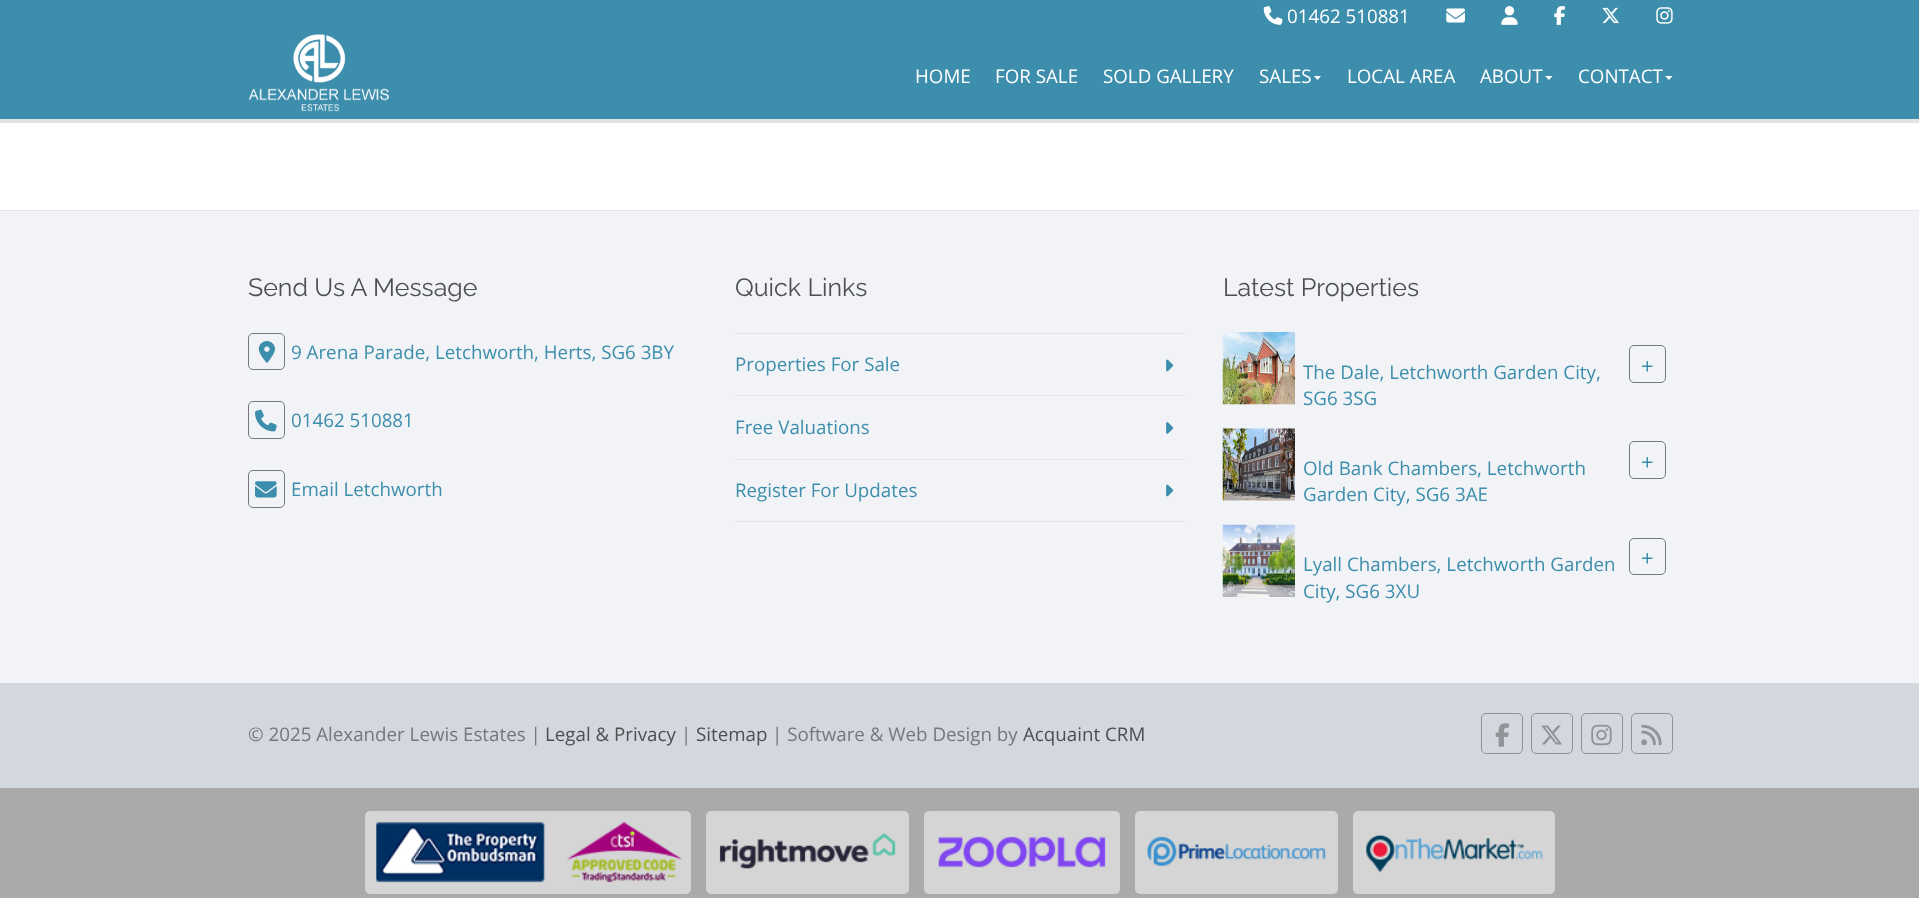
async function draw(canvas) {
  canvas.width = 1919;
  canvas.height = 898;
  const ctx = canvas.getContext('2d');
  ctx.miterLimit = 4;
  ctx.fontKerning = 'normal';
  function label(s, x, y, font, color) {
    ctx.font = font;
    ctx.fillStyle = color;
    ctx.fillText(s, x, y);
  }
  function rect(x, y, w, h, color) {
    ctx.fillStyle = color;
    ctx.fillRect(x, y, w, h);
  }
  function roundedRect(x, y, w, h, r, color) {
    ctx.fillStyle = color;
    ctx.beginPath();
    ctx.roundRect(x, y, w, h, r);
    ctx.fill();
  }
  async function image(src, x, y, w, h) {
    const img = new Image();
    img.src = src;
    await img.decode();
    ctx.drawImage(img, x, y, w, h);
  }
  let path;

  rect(0, 0, 1919, 898, '#fff');
  rect(0, 0, 1919, 119, '#3d8eac');
  await image('assets/img1.png', 1263, 6, 20, 19);
  label('01462 510881', 1287, 23, '18.75px Open Sans', '#fff');
  await image('assets/img2.png', 1446, 8, 19, 15);
  await image('assets/img3.png', 1501, 6, 17, 19);
  await image('assets/img4.png', 1554, 6, 11, 19);
  await image('assets/img5.png', 1602, 7, 17, 17);
  await image('assets/img6.png', 1656, 7, 17, 17);
  await image('assets/img7.png', 249, 34, 140, 78);
  label('HOME', 915, 83, '18.75px Open Sans', '#fff');
  label('FOR SALE', 995, 83, '18.75px Open Sans', '#fff');
  label('SOLD GALLERY', 1103, 83, '18.75px Open Sans', '#fff');
  label('SALES', 1259, 83, '18.75px Open Sans', '#fff');
  path = new Path2D('M1314 76H1321L1317.5 80Z');
  ctx.fill(path);
  label('LOCAL AREA', 1347, 83, '18.75px Open Sans', '#fff');
  label('ABOUT', 1480, 83, '18.75px Open Sans', '#fff');
  path = new Path2D('M1545 76H1552.5L1549 80Z');
  ctx.fill(path);
  label('CONTACT', 1578, 83, '18.75px Open Sans', '#fff');
  path = new Path2D('M1665 76H1672.5L1669 80Z');
  ctx.fill(path);
  rect(0, 119, 1919, 4, '#e3e3e3');
  rect(0, 211, 1919, 472, '#f1f3f6');
  rect(0, 210, 1919, 1, '#e5e7ea');
  label('Send Us A Message', 248, 296, '100 25px Raleway', '#4d4f52');
  ctx.beginPath();
  ctx.roundRect(248.5, 333.5, 36, 36, 4.5);
  ctx.strokeStyle = '#74777c';
  ctx.stroke();
  await image('assets/img8.png', 258, 341, 17, 22);
  label('9 Arena Parade, Letchworth, Herts, SG6 3BY', 291, 359, '18.75px Open Sans', '#3d8eac');
  ctx.beginPath();
  ctx.roundRect(248.5, 401.5, 36, 37, 4.5);
  ctx.stroke();
  await image('assets/img9.png', 255, 409, 22, 23);
  label('01462 510881', 291, 427, '18.75px Open Sans', '#3d8eac');
  ctx.beginPath();
  ctx.roundRect(248.5, 470.5, 36, 37, 4.5);
  ctx.stroke();
  await image('assets/img10.png', 255, 481, 22, 17);
  label('Email Letchworth', 291, 496, '18.75px Open Sans', '#3d8eac');
  label('Quick Links', 735, 296, '100 25px Raleway', '#4d4f52');
  rect(735, 333, 450, 1, '#e2e3e7');
  label('Properties For Sale', 735, 371, '18.75px Open Sans', '#3d8eac');
  await image('assets/img11.png', 1166, 359, 8, 13);
  rect(735, 395, 450, 1, '#e2e3e7');
  label('Free Valuations', 735, 434, '18.75px Open Sans', '#3d8eac');
  await image('assets/img12.png', 1166, 422, 8, 12);
  rect(735, 459, 450, 1, '#e2e3e7');
  rect(735, 521, 450, 1, '#e2e3e7');
  label('Register For Updates', 735, 497, '18.75px Open Sans', '#3d8eac');
  await image('assets/img11.png', 1166, 484, 8, 13);
  label('Latest Properties', 1223, 296, '100 25px Raleway', '#4d4f52');
  await image('assets/img13.png', 1222, 332, 73, 73);
  label('The Dale, Letchworth Garden City,', 1303, 379, '18.75px Open Sans', '#3d8eac');
  ctx.beginPath();
  ctx.roundRect(1629.5, 345.5, 36, 37, 4.5);
  ctx.stroke();
  label('+', 1641, 374, '22px Open Sans', '#3d8eac');
  label('SG6 3SG', 1303, 405, '18.75px Open Sans', '#3d8eac');
  await image('assets/img14.png', 1222, 428, 73, 73);
  label('Old Bank Chambers, Letchworth', 1303, 475, '18.75px Open Sans', '#3d8eac');
  ctx.beginPath();
  ctx.roundRect(1629.5, 441.5, 36, 37, 4.5);
  ctx.stroke();
  label('+', 1641, 470, '22px Open Sans', '#3d8eac');
  label('Garden City, SG6 3AE', 1303, 501, '18.75px Open Sans', '#3d8eac');
  await image('assets/img15.png', 1222, 524, 73, 73);
  label('Lyall Chambers, Letchworth Garden', 1303, 571, '18.75px Open Sans', '#3d8eac');
  ctx.beginPath();
  ctx.roundRect(1629.5, 538.5, 36, 36, 4.5);
  ctx.stroke();
  label('+', 1641, 566, '22px Open Sans', '#3d8eac');
  label('City, SG6 3XU', 1303, 598, '18.75px Open Sans', '#3d8eac');
  rect(0, 683, 1919, 105, '#d3d8de');
  label('© 2025 Alexander Lewis Estates |', 248, 741, '18.75px Open Sans', '#74777c');
  label('Legal & Privacy', 545, 741, '18.75px Open Sans', '#4d4f52');
  label('|', 681, 741, '18.75px Open Sans', '#74777c');
  label('Sitemap', 696, 741, '18.75px Open Sans', '#4d4f52');
  label('| Software & Web Design by', 772, 741, '18.75px Open Sans', '#74777c');
  label('Acquaint CRM', 1023, 741, '18.75px Open Sans', '#4d4f52');
  ctx.beginPath();
  ctx.roundRect(1481.5, 713.5, 41, 40, 4.5);
  ctx.strokeStyle = '#909498';
  ctx.stroke();
  await image('assets/img16.png', 1495, 723, 14, 24);
  ctx.beginPath();
  ctx.roundRect(1531.5, 713.5, 41, 40, 4.5);
  ctx.stroke();
  await image('assets/img17.png', 1541, 725, 21, 20);
  ctx.beginPath();
  ctx.roundRect(1581.5, 713.5, 41, 40, 4.5);
  ctx.stroke();
  await image('assets/img18.png', 1591, 724, 21, 22);
  ctx.beginPath();
  ctx.roundRect(1631.5, 713.5, 41, 40, 4.5);
  ctx.stroke();
  await image('assets/img19.png', 1641, 724, 21, 22);
  rect(0, 788, 1919, 110, '#aaa');
  roundedRect(365, 811, 326, 83, 5, '#d5d5d5');
  await image('assets/img20.png', 376, 821, 306, 62);
  roundedRect(706, 811, 203, 83, 5, '#d5d5d5');
  await image('assets/img21.png', 719, 833, 177, 36);
  roundedRect(924, 811, 196, 83, 5, '#d5d5d5');
  await image('assets/img22.png', 938, 836, 168, 32);
  roundedRect(1135, 811, 203, 83, 5, '#d5d5d5');
  await image('assets/img23.png', 1147, 836, 179, 30);
  roundedRect(1353, 811, 202, 83, 5, '#d5d5d5');
  await image('assets/img24.png', 1366, 834, 177, 39);
}

draw(document.querySelector('canvas'));
